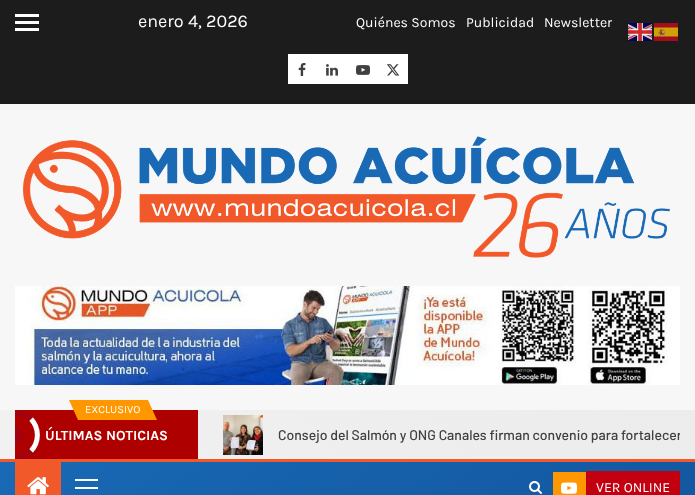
async function draw(canvas) {
  canvas.width = 695;
  canvas.height = 495;
  const ctx = canvas.getContext('2d');
  ctx.miterLimit = 4;
  ctx.fontKerning = 'normal';
  function label(s, x, y, font, color) {
    ctx.font = font;
    ctx.fillStyle = color;
    ctx.fillText(s, x, y);
  }
  function rect(x, y, w, h, color) {
    ctx.fillStyle = color;
    ctx.fillRect(x, y, w, h);
  }
  async function image(src, x, y, w, h) {
    const img = new Image();
    img.src = src;
    await img.decode();
    ctx.drawImage(img, x, y, w, h);
  }
  let gradient, path;

  rect(0, 0, 695, 495, '#f7f7f7');
  rect(0, 0, 695, 104, '#1c1c1c');
  rect(15, 14, 24, 3, '#fff');
  rect(15, 21, 24, 3, '#fff');
  rect(15, 28, 24, 3, '#fff');
  label('enero 4, 2026', 138, 27, '18px Karla', '#fff');
  label('Quiénes Somos', 356, 27, '14px Karla', '#fff');
  label('Publicidad', 466, 27, '14px Karla', '#fff');
  label('Newsletter', 544, 27, '14px Karla', '#fff');
  rect(288, 54, 120, 30, '#fff');
  await image('assets/img1.png', 298, 63, 8, 13);
  await image('assets/img2.png', 326, 64, 12, 12);
  await image('assets/img3.png', 356, 65, 14, 10);
  await image('assets/img4.png', 386, 64, 14, 12);
  await image('assets/img5.png', 23, 136, 647, 122);
  await image('assets/img6.png', 15, 286, 665, 99);
  gradient = ctx.createLinearGradient(162, 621, 534, 249);
  gradient.addColorStop(0, '#f1f1f1');
  gradient.addColorStop(1, '#ececec');
  ctx.fillStyle = gradient;
  ctx.fillRect(0, 410, 695, 49);
  rect(15, 410, 183, 49, '#af0000');
  rect(78, 400, 70, 20, '#ff9800');
  path = new Path2D('M69 400H78V420Z');
  ctx.fill(path);
  label('EXCLUSIVO', 85, 413, '11px Karla', '#fff');
  ctx.fillStyle = '#ff9800';
  path = new Path2D('M157 420H148V400Z');
  ctx.fill(path);
  path = new Path2D('M31 419C39.5 428 39.5 442 31 451');
  ctx.strokeStyle = '#fff';
  ctx.lineWidth = 5;
  ctx.stroke(path);
  ctx.save();
  ctx.beginPath();
  ctx.rect(15, 410, 183, 49);
  ctx.clip();
  path = new Path2D('M-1 419C8 410.5 22 410.5 31 419M31 451C22 459.5 8 459.5-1 451');
  ctx.strokeStyle = '#a2020f';
  ctx.stroke(path);
  ctx.restore();
  ctx.fillStyle = '#a2020f';
  ctx.beginPath();
  ctx.roundRect(15, 427, 8, 16, [0, 8, 8, 0]);
  ctx.fill();
  label('ÚLTIMAS NOTICIAS', 45, 440, 'bold 14px Karla', '#fff');
  await image('assets/img7.png', 223, 415, 40, 40);
  ctx.save();
  ctx.beginPath();
  ctx.rect(203, 415, 477, 40);
  ctx.clip();
  label('Consejo del Salmón y ONG Canales firman convenio para fortalecer', 278, 440, '500 14px Barlow', '#404040');
  ctx.restore();
  gradient = ctx.createLinearGradient(192, 301, 503, 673);
  gradient.addColorStop(0, '#1969b4');
  gradient.addColorStop(1, '#1357a0');
  ctx.fillStyle = gradient;
  ctx.fillRect(0, 462, 695, 33);
  rect(0, 459, 695, 3, '#f1592a');
  rect(15, 462, 46, 33, '#f1592a');
  await image('assets/img8.png', 27, 477, 22, 18);
  rect(75, 487, 23, 2, '#fff');
  rect(75, 479, 23, 2, '#fff');
  await image('assets/img9.png', 529, 481, 13, 13);
  rect(553, 472, 33, 23, '#ff9800');
  await image('assets/img10.png', 561, 482, 16, 12);
  rect(586, 471, 94, 24, '#c30010');
  label('VER ONLINE', 596, 492, '14px Karla', '#fff');
  await image('assets/img11.png', 628, 23, 24, 18);
  await image('assets/img12.png', 654, 23, 24, 18);
}

draw(document.querySelector('canvas'));
